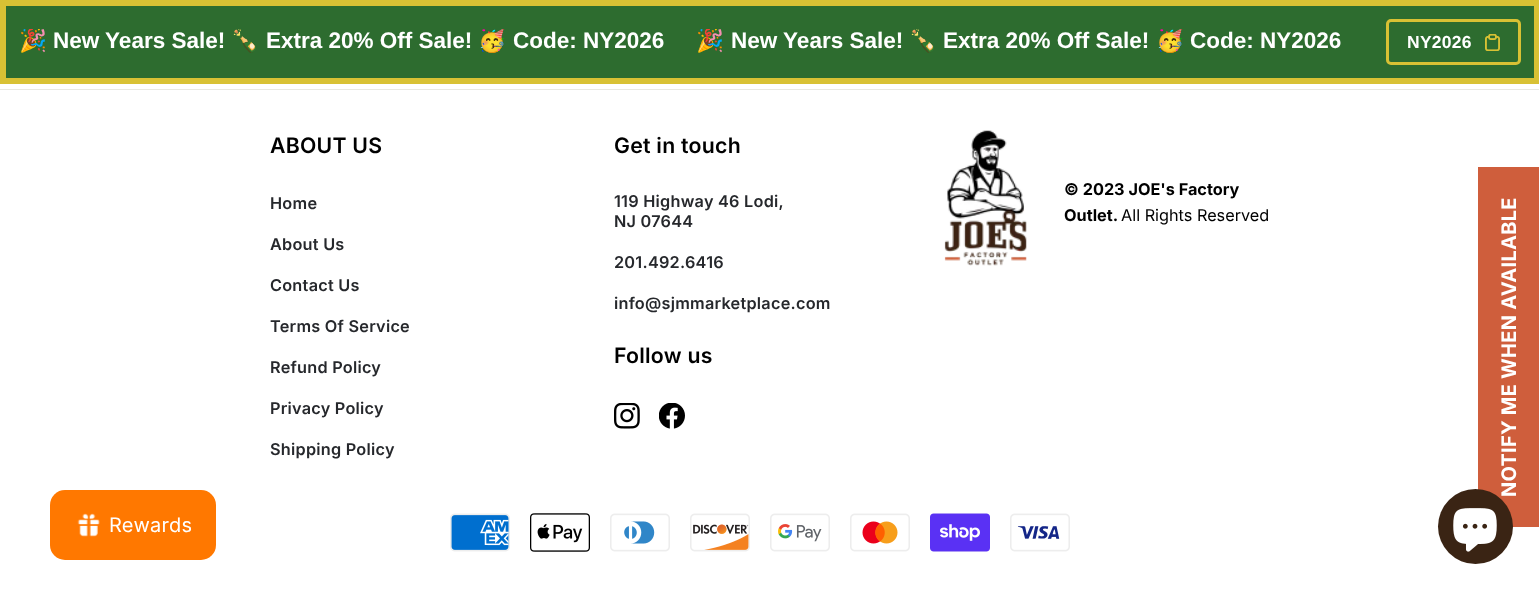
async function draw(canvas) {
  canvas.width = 1539;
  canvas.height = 589;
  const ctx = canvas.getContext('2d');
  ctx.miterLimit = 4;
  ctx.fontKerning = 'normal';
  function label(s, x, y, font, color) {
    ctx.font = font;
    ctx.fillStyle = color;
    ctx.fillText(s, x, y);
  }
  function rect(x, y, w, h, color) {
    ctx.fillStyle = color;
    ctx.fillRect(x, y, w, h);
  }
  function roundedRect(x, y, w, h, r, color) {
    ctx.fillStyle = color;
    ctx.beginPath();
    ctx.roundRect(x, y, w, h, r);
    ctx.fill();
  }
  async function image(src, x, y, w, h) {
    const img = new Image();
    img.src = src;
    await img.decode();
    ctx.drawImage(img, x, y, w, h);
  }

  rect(0, 0, 1539, 589, '#fff');
  ctx.fillStyle = '#2d6c2f';
  ctx.beginPath();
  ctx.rect(3, 3, 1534, 78);
  ctx.fill();
  ctx.strokeStyle = '#d8c134';
  ctx.lineWidth = 6;
  ctx.stroke();
  ctx.save();
  ctx.beginPath();
  ctx.rect(19, 29, 1335, 26);
  ctx.clip();
  label('🎉', 19, 48, 'bold 22.5px Noto Color Emoji', '#fff');
  ctx.restore();
  label('New Years Sale!', 53, 48, 'bold 22.5px Liberation Sans', '#fff');
  ctx.save();
  ctx.beginPath();
  ctx.rect(19, 29, 1335, 26);
  ctx.clip();
  label('🍾', 231, 48, 'bold 22.5px Noto Color Emoji', '#fff');
  ctx.restore();
  label('Extra 20% Off Sale!', 266, 48, 'bold 22.5px Liberation Sans', '#fff');
  ctx.save();
  ctx.beginPath();
  ctx.rect(19, 29, 1335, 26);
  ctx.clip();
  label('🥳', 478, 48, 'bold 22.5px Noto Color Emoji', '#fff');
  ctx.restore();
  label('Code: NY2026', 513, 48, 'bold 22.5px Liberation Sans', '#fff');
  ctx.save();
  ctx.beginPath();
  ctx.rect(19, 29, 1335, 26);
  ctx.clip();
  label('🎉', 696, 48, 'bold 22.5px Noto Color Emoji', '#fff');
  ctx.restore();
  label('New Years Sale!', 731, 48, 'bold 22.5px Liberation Sans', '#fff');
  ctx.save();
  ctx.beginPath();
  ctx.rect(19, 29, 1335, 26);
  ctx.clip();
  label('🍾', 909, 48, 'bold 22.5px Noto Color Emoji', '#fff');
  ctx.restore();
  label('Extra 20% Off Sale!', 943, 48, 'bold 22.5px Liberation Sans', '#fff');
  ctx.save();
  ctx.beginPath();
  ctx.rect(19, 29, 1335, 26);
  ctx.clip();
  label('🥳', 1156, 48, 'bold 22.5px Noto Color Emoji', '#fff');
  ctx.restore();
  label('Code: NY2026', 1190, 48, 'bold 22.5px Liberation Sans', '#fff');
  ctx.beginPath();
  ctx.roundRect(1387.5, 20.5, 132, 43, 3.5);
  ctx.lineWidth = 3;
  ctx.stroke();
  ctx.letterSpacing = '0.25px';
  label('NY2026', 1407, 48, 'bold 17.5px Liberation Sans', '#fff');
  await image('assets/img1.png', 1485, 34, 15, 17);
  rect(0, 89, 1539, 1, '#e8e8e1');
  label('ABOUT US', 270, 153, '600 21.25px Inter', '#000');
  label('Home', 270, 209, '600 16.25px Inter', '#26282c');
  label('About Us', 270, 250, '600 16.25px Inter', '#26282c');
  label('Contact Us', 270, 291, '600 16.25px Inter', '#26282c');
  label('Terms Of Service', 270, 332, '600 16.25px Inter', '#26282c');
  label('Refund Policy', 270, 373, '600 16.25px Inter', '#26282c');
  label('Privacy Policy', 270, 414, '600 16.25px Inter', '#26282c');
  label('Shipping Policy', 270, 455, '600 16.25px Inter', '#26282c');
  label('Get in touch', 614, 153, '600 21.25px Inter', '#000');
  label('119 Highway 46 Lodi,', 614, 207, '600 16.25px Inter', '#26282c');
  label('NJ 07644', 614, 227, '600 16.25px Inter', '#26282c');
  label('201.492.6416', 614, 268, '600 16.25px Inter', '#26282c');
  label('info@sjmmarketplace.com', 614, 309, '600 16.25px Inter', '#26282c');
  label('Follow us', 614, 363, '600 21.25px Inter', '#000');
  await image('assets/img2.png', 614, 403, 26, 26);
  await image('assets/img3.png', 659, 403, 26, 26);
  await image('assets/img4.png', 944, 130, 83, 136);
  ctx.letterSpacing = '0px';
  label('© 2023 JOE\'s Factory', 1064, 195, 'bold 16.25px Inter', '#000');
  label('Outlet.', 1064, 221, 'bold 16.25px Inter', '#000');
  label('All Rights Reserved', 1121, 221, '16.25px Inter', '#000');
  await image('assets/img5.png', 450, 513, 60, 39);
  await image('assets/img6.png', 530, 513, 60, 39);
  await image('assets/img7.png', 610, 513, 60, 39);
  await image('assets/img8.png', 690, 513, 60, 39);
  await image('assets/img9.png', 770, 513, 60, 39);
  await image('assets/img10.png', 850, 513, 60, 39);
  await image('assets/img11.png', 930, 513, 60, 39);
  await image('assets/img12.png', 1010, 513, 60, 39);
  rect(1478, 167, 61, 360, '#cf5e3c');
  ctx.letterSpacing = '0.25px';
  ctx.font = 'bold 20px Inter';
  ctx.fillStyle = '#fff';
  ctx.save();
  ctx.translate(1516, 497);
  ctx.rotate(-90 * Math.PI / 180);
  ctx.fillText('NOTIFY ME WHEN AVAILABLE', 0, 0);
  ctx.restore();
  roundedRect(50, 490, 166, 70, 15, '#ff7800');
  await image('assets/img13.png', 77, 513, 23, 24);
  label('Rewards', 109, 532, '20px Inter', '#fff');
  ctx.fillStyle = '#3a2414';
  ctx.beginPath();
  ctx.arc(1475.5, 526.5, 37.5, 0, 2 * Math.PI);
  ctx.fill();
  await image('assets/img14.png', 1453, 508, 44, 44);
}

draw(document.querySelector('canvas'));
